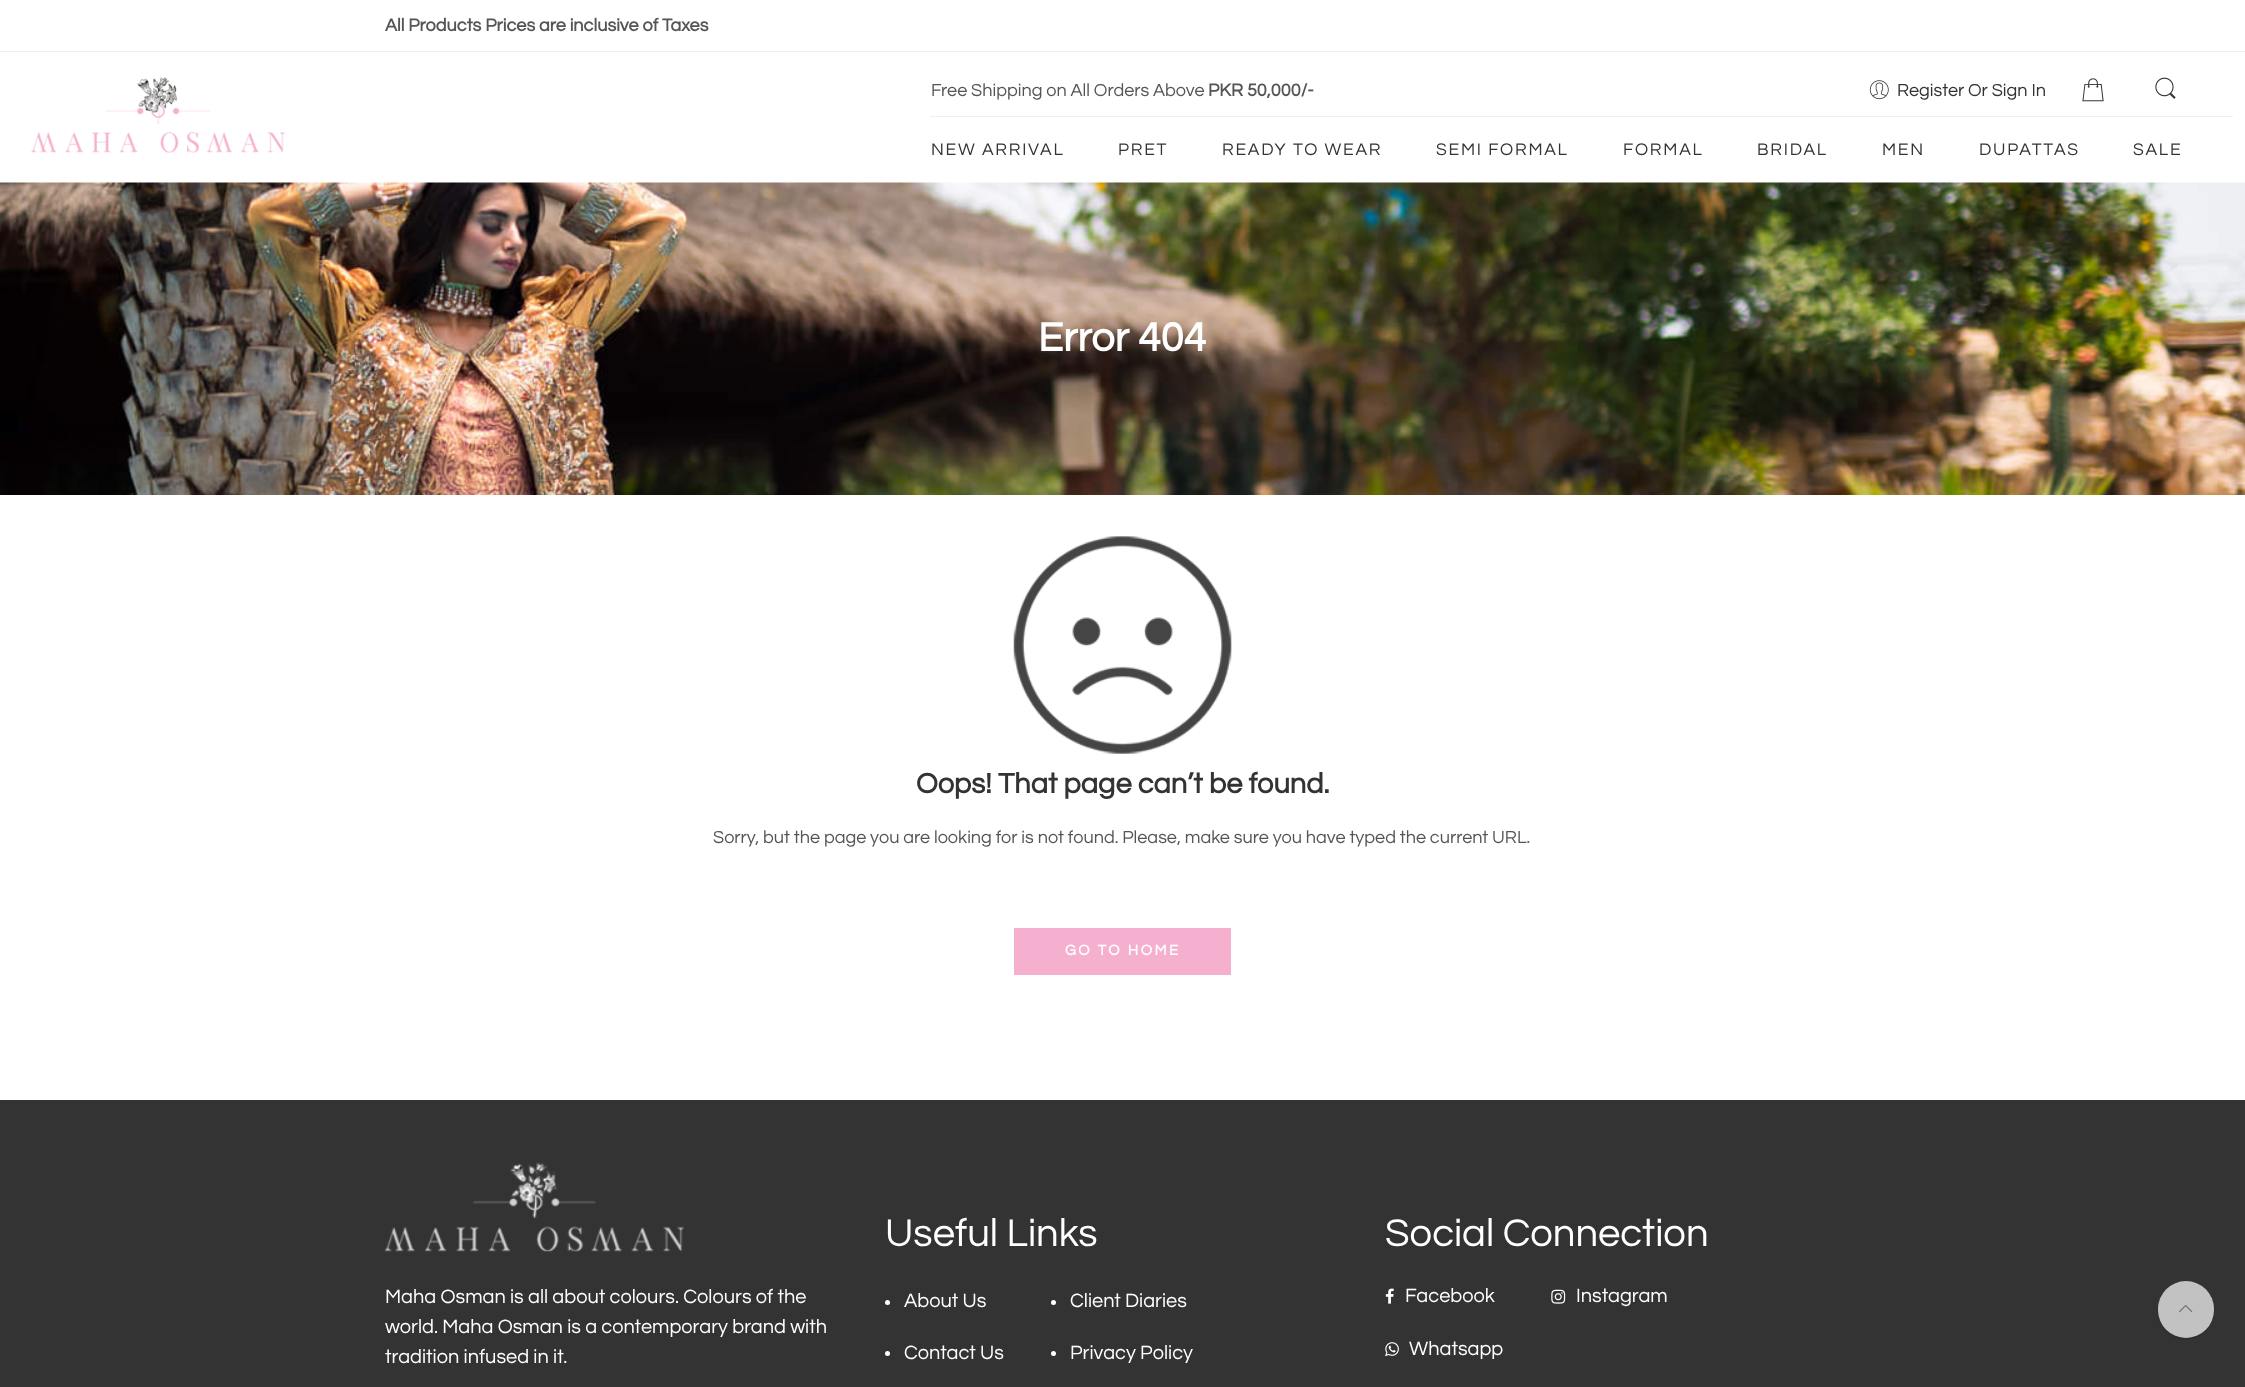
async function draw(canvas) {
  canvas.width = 2245;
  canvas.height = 1387;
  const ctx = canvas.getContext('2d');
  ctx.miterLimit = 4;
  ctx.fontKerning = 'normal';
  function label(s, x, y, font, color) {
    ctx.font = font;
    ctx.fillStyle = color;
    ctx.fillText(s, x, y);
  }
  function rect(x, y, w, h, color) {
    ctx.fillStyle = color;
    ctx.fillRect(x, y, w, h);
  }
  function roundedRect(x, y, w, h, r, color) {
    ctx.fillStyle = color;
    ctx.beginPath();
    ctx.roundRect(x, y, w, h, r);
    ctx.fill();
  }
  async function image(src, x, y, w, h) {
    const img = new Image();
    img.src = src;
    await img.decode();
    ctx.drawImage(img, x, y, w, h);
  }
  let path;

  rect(0, 0, 2245, 1387, '#fff');
  rect(0, 51, 2245, 1, '#efefef');
  label('All Products Prices are inclusive of Taxes', 385, 31, 'bold 18.1px Questrial', '#555');
  await image('assets/img1.png', 31, 77, 254, 76);
  rect(930, 116, 1303, 1, '#efefef');
  label('Free Shipping on All Orders Above', 931, 96, '18.1px Questrial', '#555');
  label('PKR 50,000/-', 1208, 96, 'bold 18.1px Questrial', '#555');
  await image('assets/img2.png', 1869, 80, 20, 20);
  label('Register Or Sign In', 1897, 96, '18.1px Questrial', '#333');
  await image('assets/img3.png', 2082, 78, 22, 24);
  await image('assets/img4.png', 2155, 77, 21, 22);
  ctx.letterSpacing = '1.75px';
  label('NEW ARRIVAL', 931, 155, '17.5px Questrial', '#333');
  label('PRET', 1118, 155, '17.5px Questrial', '#333');
  label('READY TO WEAR', 1222, 155, '17.5px Questrial', '#333');
  label('SEMI FORMAL', 1436, 155, '17.5px Questrial', '#333');
  label('FORMAL', 1623, 155, '17.5px Questrial', '#333');
  label('BRIDAL', 1757, 155, '17.5px Questrial', '#333');
  label('MEN', 1882, 155, '17.5px Questrial', '#333');
  label('DUPATTAS', 1979, 155, '17.5px Questrial', '#333');
  label('SALE', 2133, 155, '17.5px Questrial', '#333');
  await image('assets/img5.png', 0, 182, 2245, 313);
  ctx.letterSpacing = '0px';
  label('Error 404', 1038, 351, 'bold 41.5px Questrial', '#fff');
  await image('assets/img6.png', 1013, 536, 219, 218);
  label('Oops! That page can’t be found.', 916, 793, 'bold 29px Questrial', '#333');
  label('Sorry, but the page you are looking for is not found. Please, make sure you have typed the current URL.', 713, 843, '18.1px Questrial', '#555');
  rect(1014, 928, 217, 47, '#f5b0d0');
  ctx.letterSpacing = '2.5px';
  label('GO TO HOME', 1065, 955, 'bold 15px Questrial', '#fff');
  rect(0, 1100, 2245, 287, '#333');
  await image('assets/img7.png', 385, 1162, 299, 90);
  ctx.letterSpacing = '0px';
  label('Maha Osman is all about colours. Colours of the', 385, 1303, '20px Questrial', '#fff');
  label('world. Maha Osman is a contemporary brand with', 385, 1333, '20px Questrial', '#fff');
  label('tradition infused in it.', 385, 1363, '20px Questrial', '#fff');
  label('Useful Links', 885, 1246, '40px Questrial', '#fff');
  ctx.beginPath();
  ctx.arc(887.5, 1302.5, 2.5, 0, 2 * Math.PI);
  ctx.fill();
  label('About Us', 904, 1307, '20px Questrial', '#fff');
  ctx.beginPath();
  ctx.arc(887.5, 1353.5, 2.5, 0, 2 * Math.PI);
  ctx.fill();
  label('Contact Us', 904, 1359, '20px Questrial', '#fff');
  ctx.beginPath();
  ctx.arc(1053.5, 1302.5, 2.5, 0, 2 * Math.PI);
  ctx.fill();
  label('Client Diaries', 1070, 1307, '20px Questrial', '#fff');
  ctx.beginPath();
  ctx.arc(1053.5, 1353.5, 2.5, 0, 2 * Math.PI);
  ctx.fill();
  label('Privacy Policy', 1070, 1359, '20px Questrial', '#fff');
  label('Social Connection', 1385, 1246, '40px Questrial', '#fff');
  await image('assets/img8.png', 1385, 1288, 9, 16);
  label('Facebook', 1405, 1302, '20px Questrial', '#fff');
  await image('assets/img9.png', 1385, 1342, 14, 15);
  label('Whatsapp', 1409, 1355, '20px Questrial', '#fff');
  await image('assets/img10.png', 1551, 1289, 15, 15);
  label('Instagram', 1576, 1302, '20px Questrial', '#fff');
  ctx.fillStyle = '#2f2f2f';
  path = new Path2D('M2158 1316C2159 1323 2163 1329 2168 1333C2187 1350 2217 1333 2214 1308C2215 1342 2166 1349 2158 1316Z');
  ctx.fill(path);
  roundedRect(2158, 1281, 56, 57, 28, '#c2c2c2');
  await image('assets/img11.png', 2179, 1304, 14, 9);
}

draw(document.querySelector('canvas'));
